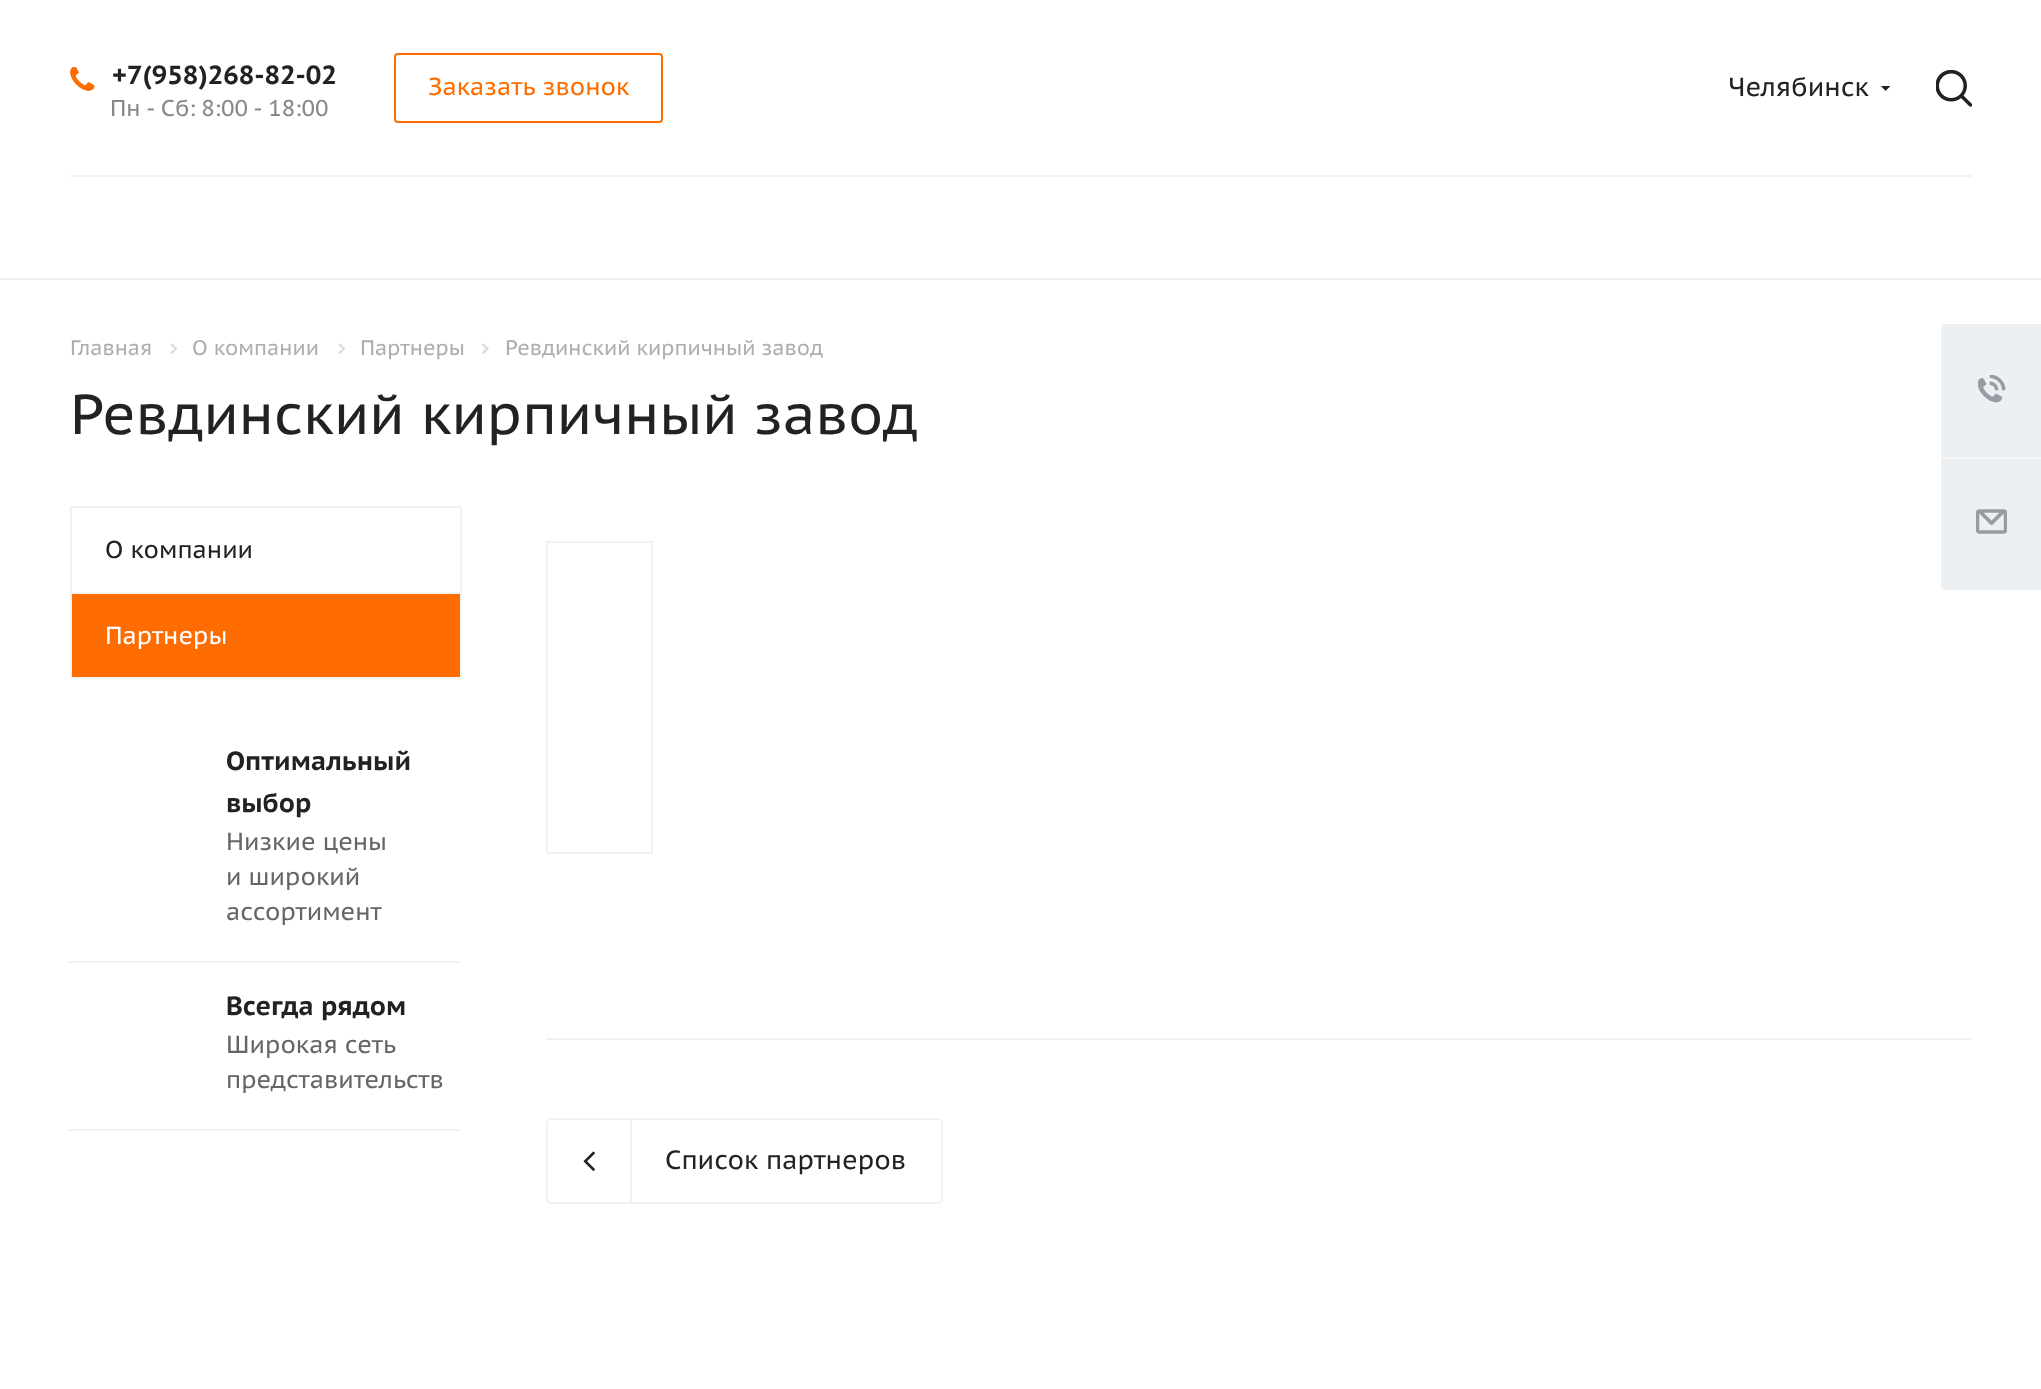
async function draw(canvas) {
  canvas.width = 2041;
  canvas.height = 1389;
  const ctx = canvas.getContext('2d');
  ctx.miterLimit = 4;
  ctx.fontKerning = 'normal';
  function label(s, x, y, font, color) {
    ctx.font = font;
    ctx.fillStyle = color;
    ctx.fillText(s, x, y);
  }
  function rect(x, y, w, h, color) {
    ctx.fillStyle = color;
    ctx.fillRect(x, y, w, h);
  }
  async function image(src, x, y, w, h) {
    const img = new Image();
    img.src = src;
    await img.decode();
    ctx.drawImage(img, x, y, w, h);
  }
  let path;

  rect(0, 0, 2041, 1389, '#fff');
  await image('assets/img1.png', 70, 67, 25, 24);
  label('+7(958)268-82-02', 112, 84, 'bold 26.25px PT Sans Caption', '#222');
  ctx.wordSpacing = '-1px';
  label('Пн - Сб: 8:00 - 18:00', 110, 116, '22.75px PT Sans Caption', '#888');
  ctx.beginPath();
  ctx.roundRect(395, 54, 267, 68, 3);
  ctx.strokeStyle = '#ff6d00';
  ctx.lineWidth = 2;
  ctx.stroke();
  ctx.wordSpacing = '1px';
  label('Заказать звонок', 428, 95, '24.5px PT Sans Caption', '#ff6d00');
  ctx.wordSpacing = '0px';
  label('Челябинск', 1728, 96, '26.25px PT Sans Caption', '#222');
  await image('assets/img2.png', 1881, 86, 9, 5);
  await image('assets/img3.png', 1936, 70, 36, 37);
  rect(70, 175, 1902, 2, '#f2f2f2');
  rect(0, 278, 2041, 2, '#f0f0f0');
  label('Главная', 70, 355, '21px PT Sans Caption', '#aeaeae');
  await image('assets/img4.png', 170, 343, 8, 11);
  label('О компании', 192, 355, '21px PT Sans Caption', '#aeaeae');
  await image('assets/img4.png', 338, 343, 8, 11);
  label('Партнеры', 360, 355, '21px PT Sans Caption', '#aeaeae');
  await image('assets/img5.png', 482, 343, 7, 11);
  label('Ревдинский кирпичный завод', 505, 355, '21px PT Sans Caption', '#aeaeae');
  label('Ревдинский кирпичный завод', 70, 434, '56px PT Sans Caption', '#222');
  rect(70, 677, 392, 2, '#f5f5f5');
  rect(70, 506, 392, 2, '#f2f2f2');
  rect(460, 506, 2, 86, '#f2f2f2');
  rect(70, 506, 2, 86, '#f2f2f2');
  label('О компании', 105, 558, '24.5px PT Sans Caption', '#222');
  rect(72, 594, 388, 83, '#ff6d00');
  rect(70, 592, 392, 2, '#f2f2f2');
  rect(460, 592, 2, 85, '#f2f2f2');
  rect(70, 592, 2, 85, '#f2f2f2');
  label('Партнеры', 105, 644, '24.5px PT Sans Caption', '#fff');
  rect(68, 961, 392, 2, '#f2f2f2');
  label('Оптимальный', 226, 770, 'bold 26.25px PT Sans Caption', '#222');
  label('выбор', 226, 812, 'bold 26.25px PT Sans Caption', '#222');
  label('Низкие цены', 226, 850, '24.5px PT Sans Caption', '#666');
  label('и широкий', 226, 885, '24.5px PT Sans Caption', '#666');
  label('ассортимент', 226, 920, '24.5px PT Sans Caption', '#666');
  rect(68, 1129, 392, 2, '#f2f2f2');
  label('Всегда рядом', 226, 1015, 'bold 26.25px PT Sans Caption', '#222');
  label('Широкая сеть', 226, 1053, '24.5px PT Sans Caption', '#666');
  label('представительств', 226, 1088, '24.5px PT Sans Caption', '#666');
  ctx.strokeStyle = '#f2f2f2';
  ctx.strokeRect(547, 542, 105, 311);
  rect(546, 1038, 1426, 2, '#f2f2f2');
  ctx.beginPath();
  ctx.roundRect(547, 1119, 395, 84, 4);
  ctx.stroke();
  await image('assets/img6.png', 583, 1151, 12, 20);
  rect(630, 1120, 2, 82, '#f2f2f2');
  label('Список партнеров', 665, 1169, '26.25px PT Sans Caption', '#222');
  ctx.fillStyle = '#edf0f3';
  path = new Path2D('M1945 324H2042V457H1941V328C1941 326 1943 324 1945 324Z');
  ctx.fill(path);
  await image('assets/img7.png', 1978, 375, 28, 28);
  path = new Path2D('M1941 457H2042V590H1945C1943 590 1941 588 1941 586Z');
  ctx.fill(path);
  rect(1941, 457, 100, 2, '#f6f8f9');
  await image('assets/img8.png', 1976, 509, 31, 25);
}

draw(document.querySelector('canvas'));
